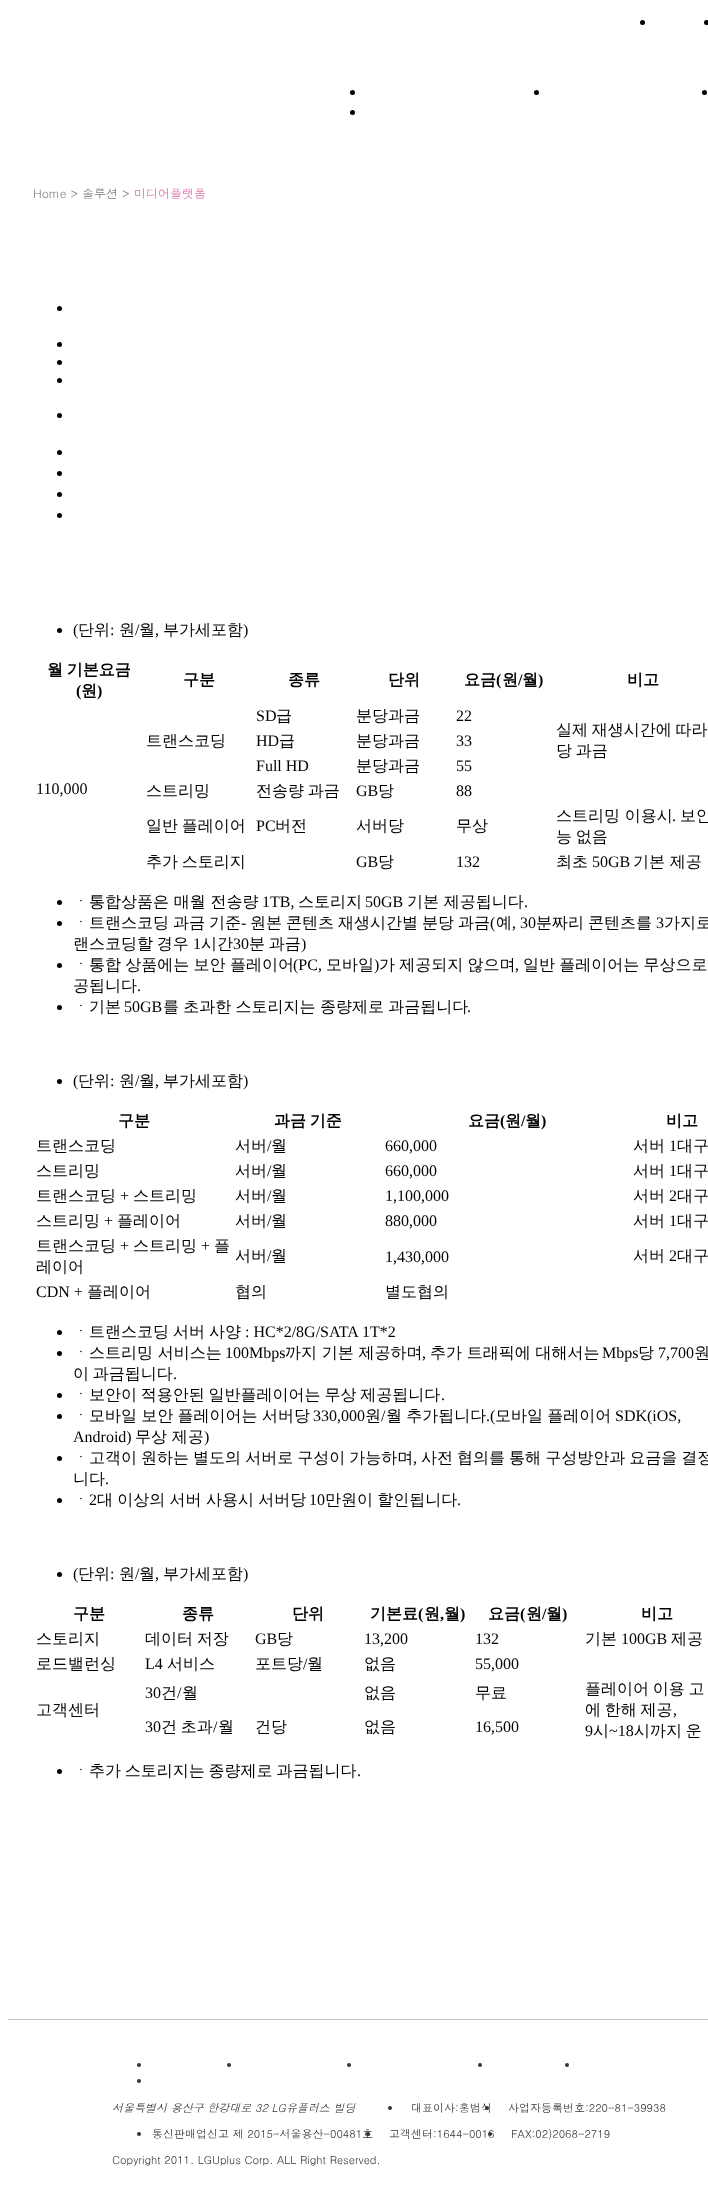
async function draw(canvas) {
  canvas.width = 708;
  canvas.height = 2188;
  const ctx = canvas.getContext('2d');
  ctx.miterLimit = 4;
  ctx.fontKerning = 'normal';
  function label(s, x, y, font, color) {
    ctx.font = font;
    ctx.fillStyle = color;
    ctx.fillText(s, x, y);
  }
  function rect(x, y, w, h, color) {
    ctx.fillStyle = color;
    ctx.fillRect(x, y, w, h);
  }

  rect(0, 0, 708, 2188, '#fff');
  ctx.fillStyle = '#000';
  ctx.beginPath();
  ctx.arc(642.5, 22.5, 2.5, 0, 2 * Math.PI);
  ctx.fill();
  ctx.beginPath();
  ctx.arc(706.5, 22.5, 2.5, 0, 2 * Math.PI);
  ctx.fill();
  ctx.beginPath();
  ctx.arc(352.5, 92.5, 2.5, 0, 2 * Math.PI);
  ctx.fill();
  ctx.beginPath();
  ctx.arc(536.5, 92.5, 2.5, 0, 2 * Math.PI);
  ctx.fill();
  ctx.beginPath();
  ctx.arc(704.5, 92.5, 2.5, 0, 2 * Math.PI);
  ctx.fill();
  ctx.beginPath();
  ctx.arc(352.5, 112.5, 2.5, 0, 2 * Math.PI);
  ctx.fill();
  label('Home > 솔루션 >', 33, 198, '12px Dotum', '#7b7b7b');
  label('미디어플랫폼', 134, 198, '12px Dotum', '#de71aa');
  ctx.fillStyle = '#000';
  ctx.beginPath();
  ctx.arc(59.5, 308.5, 2.5, 0, 2 * Math.PI);
  ctx.fill();
  ctx.beginPath();
  ctx.arc(59.5, 344.5, 2.5, 0, 2 * Math.PI);
  ctx.fill();
  ctx.beginPath();
  ctx.arc(59.5, 362.5, 2.5, 0, 2 * Math.PI);
  ctx.fill();
  ctx.beginPath();
  ctx.arc(59.5, 380.5, 2.5, 0, 2 * Math.PI);
  ctx.fill();
  ctx.beginPath();
  ctx.arc(59.5, 415.5, 2.5, 0, 2 * Math.PI);
  ctx.fill();
  ctx.beginPath();
  ctx.arc(59.5, 452.5, 2.5, 0, 2 * Math.PI);
  ctx.fill();
  ctx.beginPath();
  ctx.arc(59.5, 473.5, 2.5, 0, 2 * Math.PI);
  ctx.fill();
  ctx.beginPath();
  ctx.arc(59.5, 494.5, 2.5, 0, 2 * Math.PI);
  ctx.fill();
  ctx.beginPath();
  ctx.arc(59.5, 515.5, 2.5, 0, 2 * Math.PI);
  ctx.fill();
  ctx.beginPath();
  ctx.arc(59.5, 630.5, 2.5, 0, 2 * Math.PI);
  ctx.fill();
  label('(', 73, 635, '16px Liberation Serif', '#000');
  label('단위', 78, 635, '500 16px WenQuanYi Zen Hei', '#000');
  label(':', 110, 635, '16px Liberation Serif', '#000');
  label('원', 119, 635, '500 16px WenQuanYi Zen Hei', '#000');
  label('/', 135, 635, '16px Liberation Serif', '#000');
  label('월', 139, 635, '500 16px WenQuanYi Zen Hei', '#000');
  label('부가세포함', 163, 635, '500 16px WenQuanYi Zen Hei', '#000');
  label(')', 243, 635, '16px Liberation Serif', '#000');
  label(',', 155, 635, '16px Liberation Serif', '#000');
  ctx.wordSpacing = '-1px';
  label('월 기본요금', 47, 675, 'bold 16px WenQuanYi Zen Hei', '#000');
  ctx.wordSpacing = '0px';
  label('(', 76, 696, 'bold 16px Liberation Serif', '#000');
  label('원', 81, 696, 'bold 16px WenQuanYi Zen Hei', '#000');
  label(')', 97, 696, 'bold 16px Liberation Serif', '#000');
  label('구분', 183, 685, 'bold 16px WenQuanYi Zen Hei', '#000');
  label('종류', 288, 685, 'bold 16px WenQuanYi Zen Hei', '#000');
  label('단위', 388, 685, 'bold 16px WenQuanYi Zen Hei', '#000');
  label('요금', 464, 685, 'bold 16px WenQuanYi Zen Hei', '#000');
  label('(', 496, 685, 'bold 16px Liberation Serif', '#000');
  label('원', 502, 685, 'bold 16px WenQuanYi Zen Hei', '#000');
  label('/', 518, 685, 'bold 16px Liberation Serif', '#000');
  label('월', 522, 685, 'bold 16px WenQuanYi Zen Hei', '#000');
  label(')', 538, 685, 'bold 16px Liberation Serif', '#000');
  label('비고', 627, 685, 'bold 16px WenQuanYi Zen Hei', '#000');
  label('SD', 256, 721, '16px Liberation Serif', '#000');
  label('급', 276, 721, '500 16px WenQuanYi Zen Hei', '#000');
  label('분당과금', 356, 721, '500 16px WenQuanYi Zen Hei', '#000');
  label('22', 456, 721, '16px Liberation Serif', '#000');
  label('트랜스코딩', 146, 746, '500 16px WenQuanYi Zen Hei', '#000');
  ctx.wordSpacing = '-1px';
  label('실제 재생시간에 따라', 556, 735, '500 16px WenQuanYi Zen Hei', '#000');
  label('당 과금', 556, 756, '500 16px WenQuanYi Zen Hei', '#000');
  ctx.wordSpacing = '0px';
  label('110,000', 36, 794, '16px Liberation Serif', '#000');
  label('HD', 256, 746, '16px Liberation Serif', '#000');
  label('급', 279, 746, '500 16px WenQuanYi Zen Hei', '#000');
  label('분당과금', 356, 746, '500 16px WenQuanYi Zen Hei', '#000');
  label('33', 456, 746, '16px Liberation Serif', '#000');
  label('Full HD', 256, 771, '16px Liberation Serif', '#000');
  label('분당과금', 356, 771, '500 16px WenQuanYi Zen Hei', '#000');
  label('55', 456, 771, '16px Liberation Serif', '#000');
  label('스트리밍', 146, 796, '500 16px WenQuanYi Zen Hei', '#000');
  ctx.wordSpacing = '-1px';
  label('전송량 과금', 256, 796, '500 16px WenQuanYi Zen Hei', '#000');
  ctx.wordSpacing = '0px';
  label('GB', 356, 796, '16px Liberation Serif', '#000');
  label('당', 378, 796, '500 16px WenQuanYi Zen Hei', '#000');
  label('88', 456, 796, '16px Liberation Serif', '#000');
  ctx.wordSpacing = '-1px';
  label('일반 플레이어', 146, 831, '500 16px WenQuanYi Zen Hei', '#000');
  ctx.wordSpacing = '0px';
  label('PC', 256, 831, '16px Liberation Serif', '#000');
  label('버전', 275, 831, '500 16px WenQuanYi Zen Hei', '#000');
  label('서버당', 356, 831, '500 16px WenQuanYi Zen Hei', '#000');
  label('무상', 456, 831, '500 16px WenQuanYi Zen Hei', '#000');
  label('스트리밍 이용시', 556, 821, '500 16px WenQuanYi Zen Hei', '#000');
  label('.', 672, 821, '16px Liberation Serif', '#000');
  label('보안', 680, 821, '500 16px WenQuanYi Zen Hei', '#000');
  ctx.wordSpacing = '-1px';
  label('능 없음', 556, 842, '500 16px WenQuanYi Zen Hei', '#000');
  label('추가 스토리지', 146, 867, '500 16px WenQuanYi Zen Hei', '#000');
  ctx.wordSpacing = '0px';
  label('GB', 356, 867, '16px Liberation Serif', '#000');
  label('당', 378, 867, '500 16px WenQuanYi Zen Hei', '#000');
  label('132', 456, 867, '16px Liberation Serif', '#000');
  label('최초', 556, 867, '500 16px WenQuanYi Zen Hei', '#000');
  label('50GB', 592, 867, '16px Liberation Serif', '#000');
  label('기본 제공', 633, 867, '500 16px WenQuanYi Zen Hei', '#000');
  ctx.beginPath();
  ctx.arc(59.5, 902.5, 2.5, 0, 2 * Math.PI);
  ctx.fill();
  label('ㆍ통합상품은 매월 전송량', 73, 907, '500 16px WenQuanYi Zen Hei', '#000');
  label('1TB,', 262, 907, '16px Liberation Serif', '#000');
  label('스토리지', 298, 907, '500 16px WenQuanYi Zen Hei', '#000');
  label('50GB', 365, 907, '16px Liberation Serif', '#000');
  label('기본 제공됩니다', 407, 907, '500 16px WenQuanYi Zen Hei', '#000');
  label('.', 524, 907, '16px Liberation Serif', '#000');
  ctx.beginPath();
  ctx.arc(59.5, 923.5, 2.5, 0, 2 * Math.PI);
  ctx.fill();
  label('ㆍ트랜스코딩', 73, 928, '500 16px WenQuanYi Zen Hei', '#000');
  label('과금', 173, 928, '500 16px WenQuanYi Zen Hei', '#000');
  label('기준', 209, 928, '500 16px WenQuanYi Zen Hei', '#000');
  label('-', 241, 928, '16px Liberation Serif', '#000');
  label('원본', 250, 928, '500 16px WenQuanYi Zen Hei', '#000');
  label('콘텐츠', 286, 928, '500 16px WenQuanYi Zen Hei', '#000');
  label('재생시간별', 338, 928, '500 16px WenQuanYi Zen Hei', '#000');
  label('분당', 422, 928, '500 16px WenQuanYi Zen Hei', '#000');
  label('과금', 458, 928, '500 16px WenQuanYi Zen Hei', '#000');
  label('(', 490, 928, '16px Liberation Serif', '#000');
  label('예', 496, 928, '500 16px WenQuanYi Zen Hei', '#000');
  label(', 30', 512, 928, '16px Liberation Serif', '#000');
  label('분짜리', 536, 928, '500 16px WenQuanYi Zen Hei', '#000');
  label('콘텐츠를', 588, 928, '500 16px WenQuanYi Zen Hei', '#000');
  label('3', 656, 928, '16px Liberation Serif', '#000');
  label('가지로', 664, 928, '500 16px WenQuanYi Zen Hei', '#000');
  ctx.wordSpacing = '-1px';
  label('랜스코딩할 경우', 73, 949, '500 16px WenQuanYi Zen Hei', '#000');
  ctx.wordSpacing = '0px';
  label('1', 193, 949, '16px Liberation Serif', '#000');
  label('시간', 201, 949, '500 16px WenQuanYi Zen Hei', '#000');
  label('30', 233, 949, '16px Liberation Serif', '#000');
  ctx.wordSpacing = '-1px';
  label('분 과금', 249, 949, '500 16px WenQuanYi Zen Hei', '#000');
  ctx.wordSpacing = '0px';
  label(')', 301, 949, '16px Liberation Serif', '#000');
  ctx.beginPath();
  ctx.arc(59.5, 965.5, 2.5, 0, 2 * Math.PI);
  ctx.fill();
  ctx.wordSpacing = '-0.5px';
  label('ㆍ통합 상품에는 보안 플레이어', 73, 970, '500 16px WenQuanYi Zen Hei', '#000');
  ctx.wordSpacing = '0px';
  label('(PC,', 293, 970, '16px Liberation Serif', '#000');
  label('모바일', 326, 970, '500 16px WenQuanYi Zen Hei', '#000');
  label(')', 374, 970, '16px Liberation Serif', '#000');
  ctx.wordSpacing = '-0.5px';
  label('가 제공되지 않으며', 379, 970, '500 16px WenQuanYi Zen Hei', '#000');
  label('일반 플레이어는 무상으로', 523, 970, '500 16px WenQuanYi Zen Hei', '#000');
  ctx.wordSpacing = '0px';
  label(',', 515, 970, '16px Liberation Serif', '#000');
  label('공됩니다', 73, 991, '500 16px WenQuanYi Zen Hei', '#000');
  label('.', 137, 991, '16px Liberation Serif', '#000');
  ctx.beginPath();
  ctx.arc(59.5, 1007.5, 2.5, 0, 2 * Math.PI);
  ctx.fill();
  label('ㆍ기본', 73, 1012, '500 16px WenQuanYi Zen Hei', '#000');
  label('50GB', 124, 1012, '16px Liberation Serif', '#000');
  ctx.wordSpacing = '-0.5px';
  label('를 초과한 스토리지는 종량제로 과금됩니다', 163, 1012, '500 16px WenQuanYi Zen Hei', '#000');
  ctx.wordSpacing = '0px';
  label('.', 467, 1012, '16px Liberation Serif', '#000');
  ctx.beginPath();
  ctx.arc(59.5, 1081.5, 2.5, 0, 2 * Math.PI);
  ctx.fill();
  label('(', 73, 1086, '16px Liberation Serif', '#000');
  label('단위', 78, 1086, '500 16px WenQuanYi Zen Hei', '#000');
  label(':', 110, 1086, '16px Liberation Serif', '#000');
  label('원', 119, 1086, '500 16px WenQuanYi Zen Hei', '#000');
  label('/', 135, 1086, '16px Liberation Serif', '#000');
  label('월', 139, 1086, '500 16px WenQuanYi Zen Hei', '#000');
  label('부가세포함', 163, 1086, '500 16px WenQuanYi Zen Hei', '#000');
  label(')', 243, 1086, '16px Liberation Serif', '#000');
  label(',', 155, 1086, '16px Liberation Serif', '#000');
  label('구분', 118, 1126, 'bold 16px WenQuanYi Zen Hei', '#000');
  ctx.wordSpacing = '-1px';
  label('과금 기준', 274, 1126, 'bold 16px WenQuanYi Zen Hei', '#000');
  ctx.wordSpacing = '0px';
  label('요금', 468, 1126, 'bold 16px WenQuanYi Zen Hei', '#000');
  label('(', 500, 1126, 'bold 16px Liberation Serif', '#000');
  label('원', 505, 1126, 'bold 16px WenQuanYi Zen Hei', '#000');
  label('/', 521, 1126, 'bold 16px Liberation Serif', '#000');
  label('월', 525, 1126, 'bold 16px WenQuanYi Zen Hei', '#000');
  label(')', 541, 1126, 'bold 16px Liberation Serif', '#000');
  label('비고', 666, 1126, 'bold 16px WenQuanYi Zen Hei', '#000');
  label('트랜스코딩', 36, 1151, '500 16px WenQuanYi Zen Hei', '#000');
  label('서버', 235, 1151, '500 16px WenQuanYi Zen Hei', '#000');
  label('/', 267, 1151, '16px Liberation Serif', '#000');
  label('월', 271, 1151, '500 16px WenQuanYi Zen Hei', '#000');
  label('660,000', 385, 1151, '16px Liberation Serif', '#000');
  label('서버', 633, 1151, '500 16px WenQuanYi Zen Hei', '#000');
  label('1', 669, 1151, '16px Liberation Serif', '#000');
  label('대구', 677, 1151, '500 16px WenQuanYi Zen Hei', '#000');
  label('스트리밍', 36, 1176, '500 16px WenQuanYi Zen Hei', '#000');
  label('서버', 235, 1176, '500 16px WenQuanYi Zen Hei', '#000');
  label('/', 267, 1176, '16px Liberation Serif', '#000');
  label('월', 271, 1176, '500 16px WenQuanYi Zen Hei', '#000');
  label('660,000', 385, 1176, '16px Liberation Serif', '#000');
  label('서버', 633, 1176, '500 16px WenQuanYi Zen Hei', '#000');
  label('1', 669, 1176, '16px Liberation Serif', '#000');
  label('대구', 677, 1176, '500 16px WenQuanYi Zen Hei', '#000');
  label('트랜스코딩', 36, 1201, '500 16px WenQuanYi Zen Hei', '#000');
  label('+', 120, 1201, '16px Liberation Serif', '#000');
  label('스트리밍', 133, 1201, '500 16px WenQuanYi Zen Hei', '#000');
  label('서버', 235, 1201, '500 16px WenQuanYi Zen Hei', '#000');
  label('/', 267, 1201, '16px Liberation Serif', '#000');
  label('월', 271, 1201, '500 16px WenQuanYi Zen Hei', '#000');
  label('1,100,000', 385, 1201, '16px Liberation Serif', '#000');
  label('서버', 633, 1201, '500 16px WenQuanYi Zen Hei', '#000');
  label('2', 669, 1201, '16px Liberation Serif', '#000');
  label('대구', 677, 1201, '500 16px WenQuanYi Zen Hei', '#000');
  label('스트리밍', 36, 1226, '500 16px WenQuanYi Zen Hei', '#000');
  label('+', 104, 1226, '16px Liberation Serif', '#000');
  label('플레이어', 117, 1226, '500 16px WenQuanYi Zen Hei', '#000');
  label('서버', 235, 1226, '500 16px WenQuanYi Zen Hei', '#000');
  label('/', 267, 1226, '16px Liberation Serif', '#000');
  label('월', 271, 1226, '500 16px WenQuanYi Zen Hei', '#000');
  label('880,000', 385, 1226, '16px Liberation Serif', '#000');
  label('서버', 633, 1226, '500 16px WenQuanYi Zen Hei', '#000');
  label('1', 669, 1226, '16px Liberation Serif', '#000');
  label('대구', 677, 1226, '500 16px WenQuanYi Zen Hei', '#000');
  label('트랜스코딩', 36, 1251, '500 16px WenQuanYi Zen Hei', '#000');
  label('+', 120, 1251, '16px Liberation Serif', '#000');
  label('스트리밍', 133, 1251, '500 16px WenQuanYi Zen Hei', '#000');
  label('+', 201, 1251, '16px Liberation Serif', '#000');
  label('플', 214, 1251, '500 16px WenQuanYi Zen Hei', '#000');
  label('레이어', 36, 1272, '500 16px WenQuanYi Zen Hei', '#000');
  label('서버', 235, 1261, '500 16px WenQuanYi Zen Hei', '#000');
  label('/', 267, 1261, '16px Liberation Serif', '#000');
  label('월', 271, 1261, '500 16px WenQuanYi Zen Hei', '#000');
  label('1,430,000', 385, 1262, '16px Liberation Serif', '#000');
  label('서버', 633, 1261, '500 16px WenQuanYi Zen Hei', '#000');
  label('2', 669, 1261, '16px Liberation Serif', '#000');
  label('대구', 677, 1261, '500 16px WenQuanYi Zen Hei', '#000');
  label('CDN +', 36, 1297, '16px Liberation Serif', '#000');
  label('플레이어', 87, 1297, '500 16px WenQuanYi Zen Hei', '#000');
  label('협의', 235, 1297, '500 16px WenQuanYi Zen Hei', '#000');
  label('별도협의', 385, 1297, '500 16px WenQuanYi Zen Hei', '#000');
  ctx.beginPath();
  ctx.arc(59.5, 1332.5, 2.5, 0, 2 * Math.PI);
  ctx.fill();
  label('ㆍ트랜스코딩', 73, 1337, '500 16px WenQuanYi Zen Hei', '#000');
  label('서버', 173, 1337, '500 16px WenQuanYi Zen Hei', '#000');
  label('사양', 209, 1337, '500 16px WenQuanYi Zen Hei', '#000');
  label(': HC*2/8G/SATA 1T*2', 245, 1337, '16px Liberation Serif', '#000');
  ctx.beginPath();
  ctx.arc(59.5, 1353.5, 2.5, 0, 2 * Math.PI);
  ctx.fill();
  label('ㆍ스트리밍 서비스는', 73, 1358, '500 16px WenQuanYi Zen Hei', '#000');
  label('100Mbps', 225, 1358, '16px Liberation Serif', '#000');
  label('까지 기본 제공하며', 285, 1358, '500 16px WenQuanYi Zen Hei', '#000');
  label('추가 트래픽에 대해서는', 430, 1358, '500 16px WenQuanYi Zen Hei', '#000');
  label('Mbps', 602, 1358, '16px Liberation Serif', '#000');
  label('당', 638, 1358, '500 16px WenQuanYi Zen Hei', '#000');
  label('7,700', 658, 1358, '16px Liberation Serif', '#000');
  label('원', 694, 1358, '500 16px WenQuanYi Zen Hei', '#000');
  label(',', 422, 1358, '16px Liberation Serif', '#000');
  ctx.wordSpacing = '-1px';
  label('이 과금됩니다', 73, 1379, '500 16px WenQuanYi Zen Hei', '#000');
  ctx.wordSpacing = '0px';
  label('.', 173, 1379, '16px Liberation Serif', '#000');
  ctx.beginPath();
  ctx.arc(59.5, 1395.5, 2.5, 0, 2 * Math.PI);
  ctx.fill();
  ctx.wordSpacing = '-1px';
  label('ㆍ보안이 적용안된 일반플레이어는 무상 제공됩니다', 73, 1400, '500 16px WenQuanYi Zen Hei', '#000');
  ctx.wordSpacing = '0px';
  label('.', 441, 1400, '16px Liberation Serif', '#000');
  ctx.beginPath();
  ctx.arc(59.5, 1416.5, 2.5, 0, 2 * Math.PI);
  ctx.fill();
  ctx.wordSpacing = '-0.5px';
  label('ㆍ모바일 보안 플레이어는 서버당', 73, 1421, '500 16px WenQuanYi Zen Hei', '#000');
  ctx.wordSpacing = '0px';
  label('330,000', 313, 1421, '16px Liberation Serif', '#000');
  label('원', 365, 1421, '500 16px WenQuanYi Zen Hei', '#000');
  label('/', 381, 1421, '16px Liberation Serif', '#000');
  ctx.wordSpacing = '-0.5px';
  label('월 추가됩니다', 386, 1421, '500 16px WenQuanYi Zen Hei', '#000');
  ctx.wordSpacing = '0px';
  label('.(', 486, 1421, '16px Liberation Serif', '#000');
  ctx.wordSpacing = '-0.5px';
  label('모바일 플레이어', 495, 1421, '500 16px WenQuanYi Zen Hei', '#000');
  ctx.wordSpacing = '0px';
  label('SDK(iOS,', 615, 1421, '16px Liberation Serif', '#000');
  label('Android)', 73, 1442, '16px Liberation Serif', '#000');
  label('무상 제공', 135, 1442, '500 16px WenQuanYi Zen Hei', '#000');
  label(')', 204, 1442, '16px Liberation Serif', '#000');
  ctx.beginPath();
  ctx.arc(59.5, 1458.5, 2.5, 0, 2 * Math.PI);
  ctx.fill();
  ctx.wordSpacing = '-0.75px';
  label('ㆍ고객이 원하는 별도의 서버로 구성이 가능하며', 73, 1463, '500 16px WenQuanYi Zen Hei', '#000');
  label('사전 협의를 통해 구성방안과 요금을 결정', 421, 1463, '500 16px WenQuanYi Zen Hei', '#000');
  ctx.wordSpacing = '0px';
  label(',', 413, 1463, '16px Liberation Serif', '#000');
  label('니다', 73, 1484, '500 16px WenQuanYi Zen Hei', '#000');
  label('.', 105, 1484, '16px Liberation Serif', '#000');
  ctx.beginPath();
  ctx.arc(59.5, 1500.5, 2.5, 0, 2 * Math.PI);
  ctx.fill();
  label('ㆍ', 73, 1505, '500 16px WenQuanYi Zen Hei', '#000');
  label('2', 89, 1505, '16px Liberation Serif', '#000');
  ctx.wordSpacing = '-0.5px';
  label('대 이상의 서버 사용시 서버당', 97, 1505, '500 16px WenQuanYi Zen Hei', '#000');
  ctx.wordSpacing = '0px';
  label('10', 309, 1505, '16px Liberation Serif', '#000');
  ctx.wordSpacing = '-0.5px';
  label('만원이 할인됩니다', 325, 1505, '500 16px WenQuanYi Zen Hei', '#000');
  ctx.wordSpacing = '0px';
  label('.', 457, 1505, '16px Liberation Serif', '#000');
  ctx.beginPath();
  ctx.arc(59.5, 1574.5, 2.5, 0, 2 * Math.PI);
  ctx.fill();
  label('(', 73, 1579, '16px Liberation Serif', '#000');
  label('단위', 78, 1579, '500 16px WenQuanYi Zen Hei', '#000');
  label(':', 110, 1579, '16px Liberation Serif', '#000');
  label('원', 119, 1579, '500 16px WenQuanYi Zen Hei', '#000');
  label('/', 135, 1579, '16px Liberation Serif', '#000');
  label('월', 139, 1579, '500 16px WenQuanYi Zen Hei', '#000');
  label('부가세포함', 163, 1579, '500 16px WenQuanYi Zen Hei', '#000');
  label(')', 243, 1579, '16px Liberation Serif', '#000');
  label(',', 155, 1579, '16px Liberation Serif', '#000');
  label('구분', 73, 1619, 'bold 16px WenQuanYi Zen Hei', '#000');
  label('종류', 182, 1619, 'bold 16px WenQuanYi Zen Hei', '#000');
  label('단위', 292, 1619, 'bold 16px WenQuanYi Zen Hei', '#000');
  label('기본료', 370, 1619, 'bold 16px WenQuanYi Zen Hei', '#000');
  label('(', 418, 1619, 'bold 16px Liberation Serif', '#000');
  label('원', 424, 1619, 'bold 16px WenQuanYi Zen Hei', '#000');
  label(',', 440, 1619, 'bold 16px Liberation Serif', '#000');
  label('월', 444, 1619, 'bold 16px WenQuanYi Zen Hei', '#000');
  label(')', 460, 1619, 'bold 16px Liberation Serif', '#000');
  label('요금', 488, 1619, 'bold 16px WenQuanYi Zen Hei', '#000');
  label('(', 520, 1619, 'bold 16px Liberation Serif', '#000');
  label('원', 526, 1619, 'bold 16px WenQuanYi Zen Hei', '#000');
  label('/', 542, 1619, 'bold 16px Liberation Serif', '#000');
  label('월', 546, 1619, 'bold 16px WenQuanYi Zen Hei', '#000');
  label(')', 562, 1619, 'bold 16px Liberation Serif', '#000');
  label('비고', 641, 1619, 'bold 16px WenQuanYi Zen Hei', '#000');
  label('스토리지', 36, 1644, '500 16px WenQuanYi Zen Hei', '#000');
  ctx.wordSpacing = '-1px';
  label('데이터 저장', 145, 1644, '500 16px WenQuanYi Zen Hei', '#000');
  ctx.wordSpacing = '0px';
  label('GB', 255, 1644, '16px Liberation Serif', '#000');
  label('당', 277, 1644, '500 16px WenQuanYi Zen Hei', '#000');
  label('13,200', 364, 1644, '16px Liberation Serif', '#000');
  label('132', 475, 1644, '16px Liberation Serif', '#000');
  label('기본', 585, 1644, '500 16px WenQuanYi Zen Hei', '#000');
  label('100GB', 621, 1644, '16px Liberation Serif', '#000');
  label('제공', 671, 1644, '500 16px WenQuanYi Zen Hei', '#000');
  label('로드밸런싱', 36, 1669, '500 16px WenQuanYi Zen Hei', '#000');
  label('L4', 145, 1669, '16px Liberation Serif', '#000');
  label('서비스', 167, 1669, '500 16px WenQuanYi Zen Hei', '#000');
  label('포트당', 255, 1669, '500 16px WenQuanYi Zen Hei', '#000');
  label('/', 303, 1669, '16px Liberation Serif', '#000');
  label('월', 307, 1669, '500 16px WenQuanYi Zen Hei', '#000');
  label('없음', 364, 1669, '500 16px WenQuanYi Zen Hei', '#000');
  label('55,000', 475, 1669, '16px Liberation Serif', '#000');
  label('30', 145, 1698, '16px Liberation Serif', '#000');
  label('건', 161, 1698, '500 16px WenQuanYi Zen Hei', '#000');
  label('/', 177, 1698, '16px Liberation Serif', '#000');
  label('월', 182, 1698, '500 16px WenQuanYi Zen Hei', '#000');
  label('없음', 364, 1698, '500 16px WenQuanYi Zen Hei', '#000');
  label('무료', 475, 1698, '500 16px WenQuanYi Zen Hei', '#000');
  ctx.wordSpacing = '-1px';
  label('플레이어 이용 고', 585, 1694, '500 16px WenQuanYi Zen Hei', '#000');
  label('에 한해 제공', 585, 1715, '500 16px WenQuanYi Zen Hei', '#000');
  ctx.wordSpacing = '0px';
  label(',', 673, 1715, '16px Liberation Serif', '#000');
  label('9', 585, 1736, '16px Liberation Serif', '#000');
  label('시', 593, 1736, '500 16px WenQuanYi Zen Hei', '#000');
  label('~18', 609, 1736, '16px Liberation Serif', '#000');
  ctx.wordSpacing = '-1px';
  label('시까지 운', 634, 1736, '500 16px WenQuanYi Zen Hei', '#000');
  ctx.wordSpacing = '0px';
  label('고객센터', 36, 1715, '500 16px WenQuanYi Zen Hei', '#000');
  label('30', 145, 1732, '16px Liberation Serif', '#000');
  ctx.wordSpacing = '-1px';
  label('건 초과', 161, 1732, '500 16px WenQuanYi Zen Hei', '#000');
  ctx.wordSpacing = '0px';
  label('/', 213, 1732, '16px Liberation Serif', '#000');
  label('월', 218, 1732, '500 16px WenQuanYi Zen Hei', '#000');
  label('건당', 255, 1732, '500 16px WenQuanYi Zen Hei', '#000');
  label('없음', 364, 1732, '500 16px WenQuanYi Zen Hei', '#000');
  label('16,500', 475, 1732, '16px Liberation Serif', '#000');
  ctx.beginPath();
  ctx.arc(59.5, 1771.5, 2.5, 0, 2 * Math.PI);
  ctx.fill();
  ctx.wordSpacing = '-1px';
  label('ㆍ추가 스토리지는 종량제로 과금됩니다', 73, 1776, '500 16px WenQuanYi Zen Hei', '#000');
  ctx.wordSpacing = '0px';
  label('.', 357, 1776, '16px Liberation Serif', '#000');
  rect(8, 2019, 700, 1, '#c3c3c3');
  ctx.fillStyle = '#363636';
  ctx.beginPath();
  ctx.arc(139, 2065, 2, 0, 2 * Math.PI);
  ctx.fill();
  ctx.beginPath();
  ctx.arc(229, 2065, 2, 0, 2 * Math.PI);
  ctx.fill();
  ctx.beginPath();
  ctx.arc(349, 2065, 2, 0, 2 * Math.PI);
  ctx.fill();
  ctx.beginPath();
  ctx.arc(480, 2065, 2, 0, 2 * Math.PI);
  ctx.fill();
  ctx.beginPath();
  ctx.arc(567, 2065, 2, 0, 2 * Math.PI);
  ctx.fill();
  ctx.beginPath();
  ctx.arc(139, 2081, 2, 0, 2 * Math.PI);
  ctx.fill();
  label('서울특별시 용산구 한강대로 32 LG유플러스 빌딩', 112, 2112, 'italic 11px Dotum', '#363636');
  ctx.beginPath();
  ctx.arc(390, 2108, 2, 0, 2 * Math.PI);
  ctx.fill();
  label('대표이사:홍범식', 411, 2112, '11px Dotum', '#363636');
  ctx.beginPath();
  ctx.arc(487, 2108, 2, 0, 2 * Math.PI);
  ctx.fill();
  label('사업자등록번호:220-81-39938', 508, 2112, '11px Dotum', '#363636');
  ctx.beginPath();
  ctx.arc(139, 2134, 2, 0, 2 * Math.PI);
  ctx.fill();
  label('통신판매업신고 제 2015-서울용산-00481호', 152, 2138, '11px Dotum', '#363636');
  ctx.beginPath();
  ctx.arc(368, 2134, 2, 0, 2 * Math.PI);
  ctx.fill();
  label('고객센터:1644-0016', 389, 2138, '11px Dotum', '#363636');
  ctx.beginPath();
  ctx.arc(490, 2134, 2, 0, 2 * Math.PI);
  ctx.fill();
  label('FAX:02)2068-2719', 511, 2138, '11px Dotum', '#363636');
  label('Copyright 2011. LGUplus Corp. ALL Right Reserved.', 112, 2164, '11px Dotum', '#363636');
}

draw(document.querySelector('canvas'));
